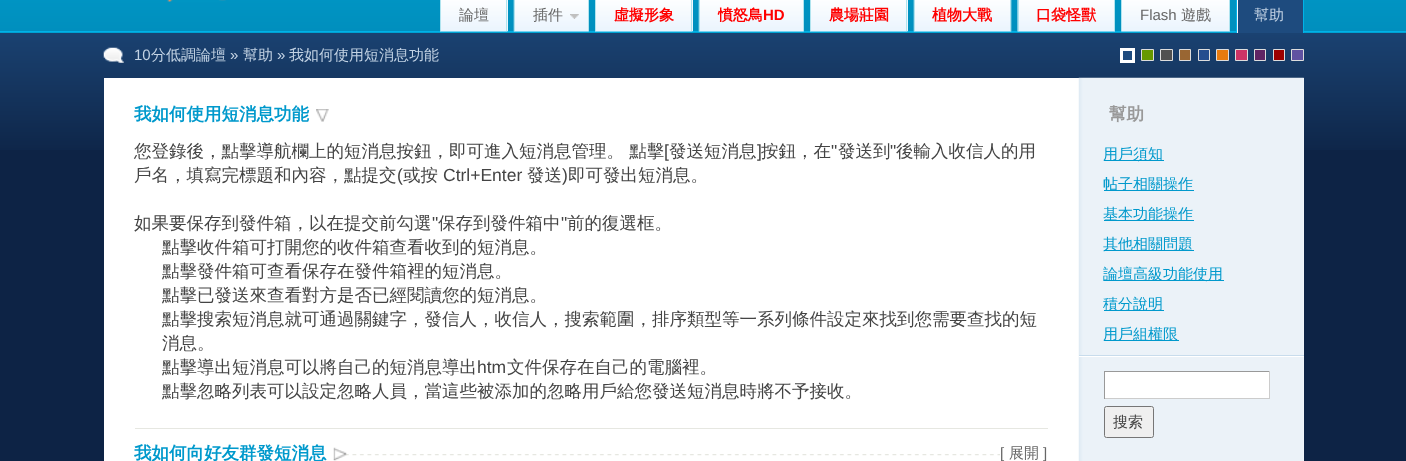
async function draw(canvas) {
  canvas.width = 1406;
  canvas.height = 461;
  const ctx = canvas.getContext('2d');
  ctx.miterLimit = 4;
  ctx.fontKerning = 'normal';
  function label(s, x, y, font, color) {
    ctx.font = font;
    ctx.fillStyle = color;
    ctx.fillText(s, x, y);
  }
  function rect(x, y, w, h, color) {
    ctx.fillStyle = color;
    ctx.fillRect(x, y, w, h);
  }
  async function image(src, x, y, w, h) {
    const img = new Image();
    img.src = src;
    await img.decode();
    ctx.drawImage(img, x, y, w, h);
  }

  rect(0, 0, 1406, 461, '#0d2345');
  await image('assets/img1.png', 0, 33, 1406, 117);
  rect(0, 32, 1406, 1, '#00a2d2');
  await image('assets/img2.png', 0, 0, 1406, 31);
  rect(0, 31, 1406, 1, '#00b2e8');
  await image('assets/img3.png', 167, 0, 59, 2);
  rect(507, 0, 1, 31, '#ebf4fd');
  await image('assets/img4.png', 440, 0, 68, 32);
  rect(506, 0, 1, 31, '#b0e4ef');
  rect(440, 0, 1, 31, '#b0e4ef');
  label('論壇', 459, 20, '500 15px WenQuanYi Zen Hei', '#666');
  await image('assets/img5.png', 513, 0, 76, 32);
  await image('assets/img6.png', 570, 14, 9, 5);
  rect(588, 0, 1, 31, '#b0e4ef');
  rect(514, 0, 1, 31, '#b0e4ef');
  label('插件', 533, 20, '500 15px WenQuanYi Zen Hei', '#666');
  rect(692, 0, 1, 31, '#ebf4fd');
  await image('assets/img7.png', 595, 0, 98, 32);
  rect(691, 0, 1, 31, '#b0e4ef');
  rect(595, 0, 1, 31, '#b0e4ef');
  label('虛擬形象', 614, 20, 'bold 15px WenQuanYi Zen Hei', '#f00');
  await image('assets/img8.png', 698, 0, 106, 32);
  rect(803, 0, 1, 31, '#b0e4ef');
  rect(699, 0, 1, 31, '#b0e4ef');
  label('憤怒鳥', 718, 20, 'bold 15px WenQuanYi Zen Hei', '#f00');
  label('HD', 763, 20, 'bold 15px Liberation Sans', '#f00');
  rect(907, 0, 1, 31, '#ebf4fd');
  await image('assets/img7.png', 810, 0, 98, 32);
  rect(906, 0, 1, 31, '#b0e4ef');
  rect(810, 0, 1, 31, '#b0e4ef');
  label('農場莊園', 829, 20, 'bold 15px WenQuanYi Zen Hei', '#f00');
  await image('assets/img9.png', 913, 0, 99, 32);
  rect(1010, 0, 1, 31, '#b0e4ef');
  rect(914, 0, 1, 31, '#b0e4ef');
  label('植物大戰', 932, 20, 'bold 15px WenQuanYi Zen Hei', '#f00');
  await image('assets/img10.png', 1017, 0, 98, 32);
  rect(1114, 0, 1, 31, '#b0e4ef');
  rect(1018, 0, 1, 31, '#b0e4ef');
  label('口袋怪獸', 1036, 20, 'bold 15px WenQuanYi Zen Hei', '#f00');
  await image('assets/img11.png', 1121, 0, 109, 32);
  rect(1229, 0, 1, 31, '#b0e4ef');
  rect(1121, 0, 1, 31, '#b0e4ef');
  label('Flash', 1140, 20, '15px Liberation Sans', '#666');
  label('遊戲', 1181, 20, '500 15px WenQuanYi Zen Hei', '#666');
  rect(1237, 23, 1, 10, '#ebf4fd');
  await image('assets/img12.png', 1237, 0, 1, 23);
  rect(1238, 0, 65, 33, '#1e4b7e');
  rect(1303, 0, 1, 33, '#00b2e8');
  rect(1236, 0, 1, 33, '#00b2e8');
  label('幫助', 1254, 20, '500 15px WenQuanYi Zen Hei', '#c3d3e4');
  ctx.fillStyle = '#1e4b7e';
  ctx.beginPath();
  ctx.rect(1121.5, 49.5, 12, 12);
  ctx.fill();
  ctx.strokeStyle = '#fff';
  ctx.lineWidth = 3;
  ctx.stroke();
  ctx.fillStyle = '#690';
  ctx.beginPath();
  ctx.rect(1141.5, 49.5, 12, 11);
  ctx.fill();
  ctx.strokeStyle = '#ddd';
  ctx.lineWidth = 1;
  ctx.stroke();
  ctx.fillStyle = '#505050';
  ctx.beginPath();
  ctx.rect(1160.5, 49.5, 12, 11);
  ctx.fill();
  ctx.stroke();
  ctx.fillStyle = '#963';
  ctx.beginPath();
  ctx.rect(1179.5, 49.5, 11, 11);
  ctx.fill();
  ctx.stroke();
  ctx.fillStyle = '#244d8f';
  ctx.beginPath();
  ctx.rect(1198.5, 49.5, 11, 11);
  ctx.fill();
  ctx.stroke();
  ctx.fillStyle = '#e77b0f';
  ctx.beginPath();
  ctx.rect(1216.5, 49.5, 12, 11);
  ctx.fill();
  ctx.stroke();
  ctx.fillStyle = '#c36';
  ctx.beginPath();
  ctx.rect(1235.5, 49.5, 12, 11);
  ctx.fill();
  ctx.stroke();
  ctx.fillStyle = '#602464';
  ctx.beginPath();
  ctx.rect(1254.5, 49.5, 11, 11);
  ctx.fill();
  ctx.stroke();
  ctx.fillStyle = '#9b0000';
  ctx.beginPath();
  ctx.rect(1273.5, 49.5, 11, 11);
  ctx.fill();
  ctx.stroke();
  ctx.fillStyle = '#6052a1';
  ctx.beginPath();
  ctx.rect(1291.5, 49.5, 12, 11);
  ctx.fill();
  ctx.stroke();
  await image('assets/img13.png', 103, 47, 21, 16);
  label('10', 134, 60, '15px Liberation Sans', '#c3d3e4');
  label('分低調論壇', 151, 60, '500 15px WenQuanYi Zen Hei', '#c3d3e4');
  label('»', 230, 60, '15px Liberation Sans', '#c3d3e4');
  label('幫助', 243, 60, '500 15px WenQuanYi Zen Hei', '#c3d3e4');
  label('»', 277, 60, '15px Liberation Sans', '#c3d3e4');
  label('我如何使用短消息功能', 289, 60, '500 15px WenQuanYi Zen Hei', '#c3d3e4');
  rect(104, 78, 1200, 383, '#fff');
  await image('assets/img14.png', 1078, 77, 226, 384);
  await image('assets/img15.png', 316, 109, 13, 13);
  label('我如何使用短消息功能', 134, 120, 'bold 17.5px WenQuanYi Zen Hei', '#09c');
  rect(135, 428, 913, 1, '#e6e7e1');
  label('您登錄後，點擊導航欄上的短消息按鈕，即可進入短消息管理。 點擊', 134, 157, '500 17.5px WenQuanYi Zen Hei', '#444');
  label('[', 664, 157, '17.5px Liberation Sans', '#444');
  label('發送短消息', 669, 157, '500 17.5px WenQuanYi Zen Hei', '#444');
  label(']', 757, 157, '17.5px Liberation Sans', '#444');
  label('按鈕，在', 761, 157, '500 17.5px WenQuanYi Zen Hei', '#444');
  label('"', 831, 157, '17.5px Liberation Sans', '#444');
  label('發送到', 838, 157, '500 17.5px WenQuanYi Zen Hei', '#444');
  label('"', 890, 157, '17.5px Liberation Sans', '#444');
  label('後輸入收信人的用', 896, 157, '500 17.5px WenQuanYi Zen Hei', '#444');
  label('戶名，填寫完標題和內容，點提交', 134, 181, '500 17.5px WenQuanYi Zen Hei', '#444');
  label('(', 397, 181, '17.5px Liberation Sans', '#444');
  label('或按', 403, 181, '500 17.5px WenQuanYi Zen Hei', '#444');
  label('Ctrl+Enter', 443, 181, '17.5px Liberation Sans', '#444');
  label('發送', 527, 181, '500 17.5px WenQuanYi Zen Hei', '#444');
  label(')', 562, 181, '17.5px Liberation Sans', '#444');
  label('即可發出短消息。', 568, 181, '500 17.5px WenQuanYi Zen Hei', '#444');
  label('如果要保存到發件箱，以在提交前勾選', 134, 229, '500 17.5px WenQuanYi Zen Hei', '#444');
  label('"', 432, 229, '17.5px Liberation Sans', '#444');
  label('保存到發件箱中', 438, 229, '500 17.5px WenQuanYi Zen Hei', '#444');
  label('"', 561, 229, '17.5px Liberation Sans', '#444');
  label('前的復選框。', 567, 229, '500 17.5px WenQuanYi Zen Hei', '#444');
  label('點擊收件箱可打開您的收件箱查看收到的短消息。', 162, 253, '500 17.5px WenQuanYi Zen Hei', '#444');
  label('點擊發件箱可查看保存在發件箱裡的短消息。', 162, 277, '500 17.5px WenQuanYi Zen Hei', '#444');
  label('點擊已發送來查看對方是否已經閱讀您的短消息。', 162, 301, '500 17.5px WenQuanYi Zen Hei', '#444');
  label('點擊搜索短消息就可通過關鍵字，發信人，收信人，搜索範圍，排序類型等一系列條件設定來找到您需要查找的短', 162, 325, '500 17.5px WenQuanYi Zen Hei', '#444');
  label('消息。', 162, 349, '500 17.5px WenQuanYi Zen Hei', '#444');
  label('點擊導出短消息可以將自己的短消息導出', 162, 373, '500 17.5px WenQuanYi Zen Hei', '#444');
  label('htm', 477, 373, '17.5px Liberation Sans', '#444');
  label('文件保存在自己的電腦裡。', 507, 373, '500 17.5px WenQuanYi Zen Hei', '#444');
  label('點擊忽略列表可以設定忽略人員，當這些被添加的忽略用戶給您發送短消息時將不予接收。', 162, 397, '500 17.5px WenQuanYi Zen Hei', '#444');
  await image('assets/img16.png', 346, 454, 654, 2);
  await image('assets/img17.png', 333, 447, 14, 14);
  label('我如何向好友群發短消息', 134, 459, 'bold 17.5px WenQuanYi Zen Hei', '#09c');
  label('[', 1000, 458, '15px Liberation Sans', '#666');
  label('展開', 1009, 458, '500 15px WenQuanYi Zen Hei', '#666');
  label(']', 1043, 458, '15px Liberation Sans', '#666');
  label('幫助', 1109, 120, 'bold 17.5px WenQuanYi Zen Hei', '#999');
  rect(1104, 160, 60, 1, '#09c');
  label('用戶須知', 1103, 159, '500 15px WenQuanYi Zen Hei', '#09c');
  rect(1104, 190, 90, 1, '#09c');
  label('帖子相關操作', 1103, 189, '500 15px WenQuanYi Zen Hei', '#09c');
  rect(1104, 220, 90, 1, '#09c');
  label('基本功能操作', 1103, 219, '500 15px WenQuanYi Zen Hei', '#09c');
  rect(1104, 250, 90, 1, '#09c');
  label('其他相關問題', 1103, 249, '500 15px WenQuanYi Zen Hei', '#09c');
  rect(1104, 280, 120, 1, '#09c');
  label('論壇高級功能使用', 1103, 279, '500 15px WenQuanYi Zen Hei', '#09c');
  rect(1104, 310, 60, 1, '#09c');
  label('積分說明', 1103, 309, '500 15px WenQuanYi Zen Hei', '#09c');
  rect(1104, 340, 75, 1, '#09c');
  label('用戶組權限', 1103, 339, '500 15px WenQuanYi Zen Hei', '#09c');
  rect(1079, 355, 225, 1, '#c8dcec');
  rect(1079, 356, 225, 1, '#fff');
  rect(1105, 372, 164, 26, '#fff');
  rect(1104, 371, 166, 1, '#999');
  rect(1269, 371, 1, 28, '#ccc');
  rect(1104, 398, 166, 1, '#ccc');
  rect(1104, 371, 1, 28, '#999');
  ctx.fillStyle = '#efefef';
  ctx.beginPath();
  ctx.roundRect(1104.5, 406.5, 49, 31, 2);
  ctx.fill();
  ctx.strokeStyle = '#767676';
  ctx.stroke();
  label('搜索', 1113, 427, '500 15px WenQuanYi Zen Hei', '#444');
}

draw(document.querySelector('canvas'));
